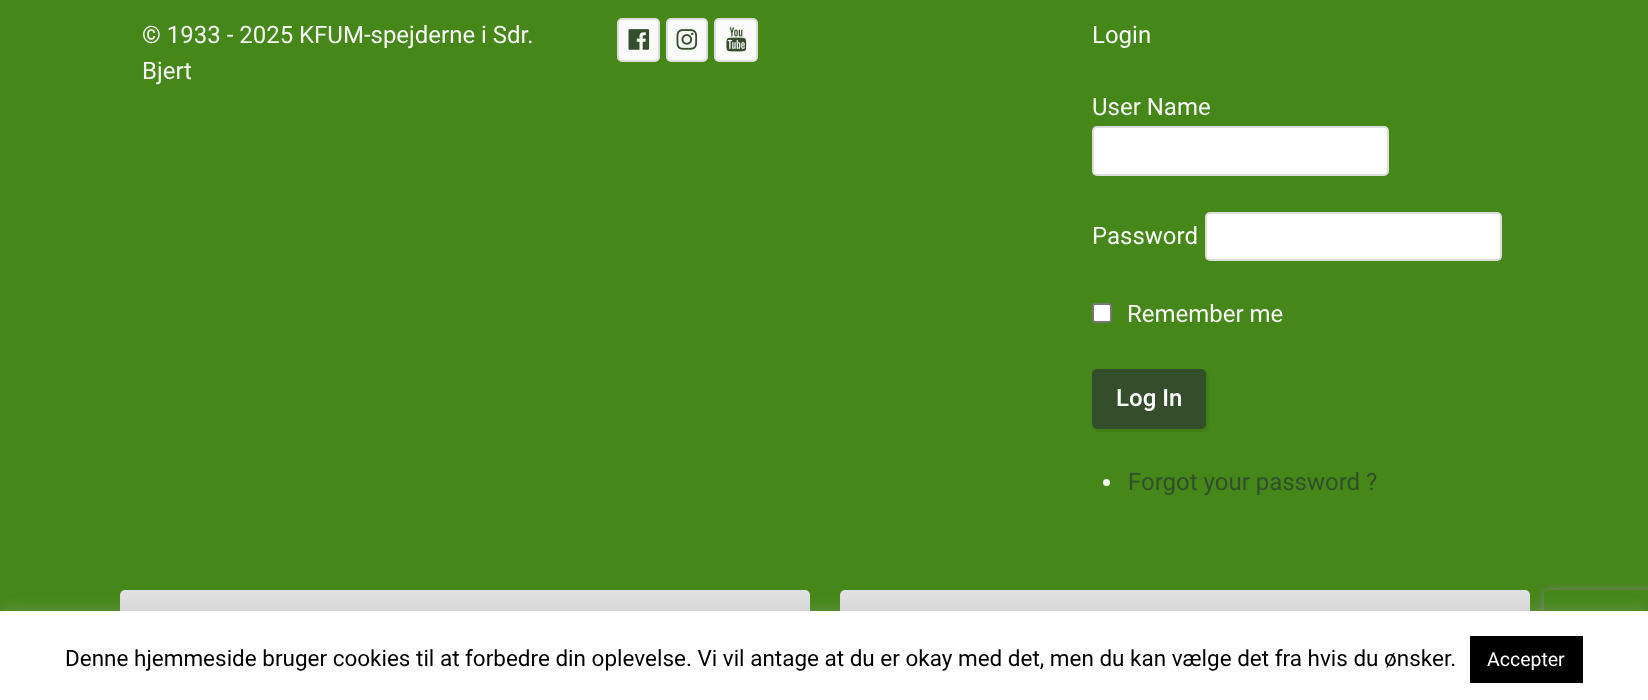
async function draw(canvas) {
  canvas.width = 1648;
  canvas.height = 700;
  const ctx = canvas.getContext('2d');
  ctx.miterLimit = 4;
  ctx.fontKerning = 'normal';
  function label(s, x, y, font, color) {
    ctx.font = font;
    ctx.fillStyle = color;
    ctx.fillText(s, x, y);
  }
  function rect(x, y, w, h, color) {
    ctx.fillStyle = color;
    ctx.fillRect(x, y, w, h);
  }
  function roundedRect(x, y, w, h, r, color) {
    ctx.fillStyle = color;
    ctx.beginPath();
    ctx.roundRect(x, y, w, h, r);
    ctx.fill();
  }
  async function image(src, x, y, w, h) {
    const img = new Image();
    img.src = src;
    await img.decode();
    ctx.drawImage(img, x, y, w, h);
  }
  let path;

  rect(0, 0, 1648, 700, '#458718');
  label('© 1933 - 2025 KFUM-spejderne i Sdr.', 142, 43, '24px Roboto', '#f7f7f7');
  label('Bjert', 142, 79, '24px Roboto', '#f7f7f7');
  ctx.fillStyle = '#fafafa';
  ctx.beginPath();
  ctx.roundRect(618, 19, 41, 42, 4);
  ctx.fill();
  ctx.strokeStyle = '#ddd';
  ctx.lineWidth = 2;
  ctx.stroke();
  await image('assets/img1.png', 628, 29, 22, 21);
  ctx.beginPath();
  ctx.roundRect(667, 19, 40, 42, 4);
  ctx.fill();
  ctx.stroke();
  await image('assets/img2.png', 676, 29, 22, 21);
  ctx.beginPath();
  ctx.roundRect(715, 19, 42, 42, 4);
  ctx.fill();
  ctx.stroke();
  await image('assets/img3.png', 726, 27, 21, 25);
  label('Login', 1092, 43, '24px Roboto', '#f7f7f7');
  label('User Name', 1092, 115, '24px Roboto', '#f7f7f7');
  ctx.fillStyle = '#fff';
  ctx.beginPath();
  ctx.roundRect(1093, 127, 295, 48, 4);
  ctx.fill();
  ctx.stroke();
  label('Password', 1092, 244, '24px Roboto', '#f7f7f7');
  ctx.fillStyle = '#fff';
  ctx.beginPath();
  ctx.roundRect(1206, 213, 295, 47, 4);
  ctx.fill();
  ctx.stroke();
  ctx.beginPath();
  ctx.roundRect(1093, 304, 18, 18, 2);
  ctx.fill();
  ctx.strokeStyle = '#767676';
  ctx.stroke();
  label('Remember me', 1127, 322, '24px Roboto', '#f7f7f7');
  ctx.fillStyle = '#0000001a';
  ctx.filter = 'blur(1px)';
  ctx.beginPath();
  ctx.roundRect(1094, 371, 114, 60, 5);
  ctx.fill();
  ctx.filter = 'none';
  roundedRect(1092, 369, 114, 60, 5, '#344e2c');
  label('Log In', 1116, 406, '500 24px Roboto', '#fff');
  ctx.fillStyle = '#f7f7f7';
  ctx.beginPath();
  ctx.arc(1106.5, 482.5, 3.5, 0, 2 * Math.PI);
  ctx.fill();
  label('Forgot your password ?', 1128, 490, '24px Roboto', '#344e2c');
  roundedRect(120, 590, 690, 81, 5, '#e0e0e0');
  roundedRect(840, 590, 690, 81, 5, '#e0e0e0');
  ctx.fillStyle = '#acabab4d';
  ctx.filter = 'blur(7.5px)';
  ctx.beginPath();
  ctx.rect(0, 609, 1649, 90);
  ctx.fill();
  ctx.filter = 'none';
  ctx.save();
  path = new Path2D('M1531 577H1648V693H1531ZM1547 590H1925C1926.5 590 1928 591.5 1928 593V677C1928 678.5 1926.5 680 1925 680H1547C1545.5 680 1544 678.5 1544 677V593C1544 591.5 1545.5 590 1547 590Z');
  ctx.clip(path, 'evenodd');
  ctx.fillStyle = '#808080';
  ctx.filter = 'blur(4px)';
  ctx.beginPath();
  ctx.roundRect(1544, 590, 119, 90, 3);
  ctx.fill();
  ctx.filter = 'none';
  ctx.restore();
  rect(0, 611, 1648, 89, '#fff');
  label('Denne hjemmeside bruger cookies til at forbedre din oplevelse. Vi vil antage at du er okay med det, men du kan vælge det fra hvis du ønsker.', 65, 666, '22.5px Roboto', '#000');
  rect(1470, 636, 113, 47, '#000');
  label('Accepter', 1487, 666, '19.5px Roboto', '#fff');
}

draw(document.querySelector('canvas'));
